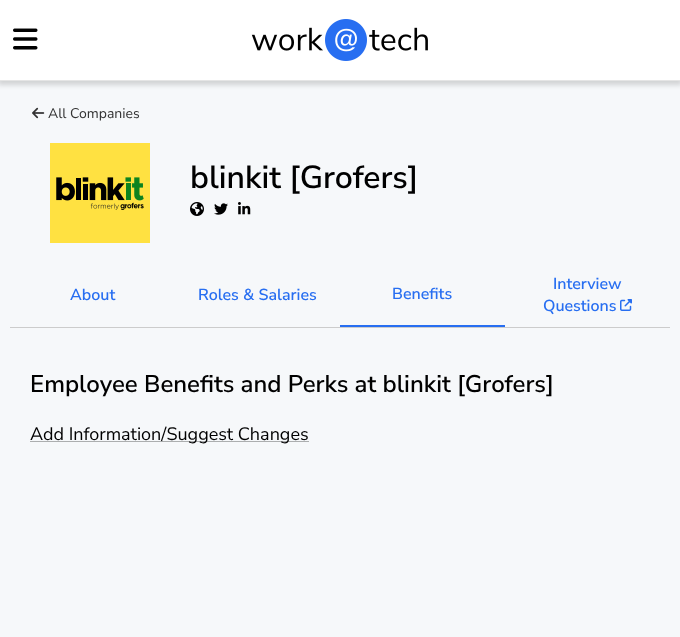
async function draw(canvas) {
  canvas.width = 680;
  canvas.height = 637;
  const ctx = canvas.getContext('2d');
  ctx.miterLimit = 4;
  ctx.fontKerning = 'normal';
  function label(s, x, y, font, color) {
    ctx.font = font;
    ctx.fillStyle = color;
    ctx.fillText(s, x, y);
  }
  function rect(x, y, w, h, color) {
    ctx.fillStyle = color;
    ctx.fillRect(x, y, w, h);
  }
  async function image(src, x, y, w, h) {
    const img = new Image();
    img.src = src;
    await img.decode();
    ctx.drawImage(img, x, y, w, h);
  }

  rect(0, 0, 680, 637, '#f6f8fa');
  ctx.fillStyle = '#00000026';
  ctx.filter = 'blur(2.5px)';
  ctx.beginPath();
  ctx.rect(-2, 0, 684, 85);
  ctx.fill();
  ctx.filter = 'none';
  rect(0, 0, 680, 80, '#fff');
  rect(0, 80, 680, 1, '#e5e5e5');
  await image('assets/img1.png', 13, 28, 25, 22);
  await image('assets/img2.png', 251, 19, 177, 42);
  await image('assets/img3.png', 32, 107, 13, 12);
  label('All Companies', 48, 118, '14px Nunito Sans', '#333');
  await image('assets/img4.png', 50, 143, 100, 100);
  label('blinkit [Grofers]', 190, 188, '600 32px Nunito Sans', '#000');
  await image('assets/img5.png', 190, 202, 14, 14);
  await image('assets/img6.png', 214, 203, 14, 12);
  await image('assets/img7.png', 238, 202, 13, 13);
  rect(10, 327, 660, 1, '#ccc');
  label('About', 70, 300, '600 16px Nunito Sans', '#276ef1');
  label('Roles & Salaries', 198, 300, '600 16px Nunito Sans', '#276ef1');
  rect(340, 325, 165, 2, '#276ef1');
  label('Benefits', 392, 299, '600 16px Nunito Sans', '#276ef1');
  label('Interview', 553, 289, '600 16px Nunito Sans', '#276ef1');
  label('Questions', 543, 311, '600 16px Nunito Sans', '#276ef1');
  await image('assets/img8.png', 620, 299, 12, 12);
  label('Employee Benefits and Perks at blinkit [Grofers]', 30, 392, '600 24px Nunito Sans', '#000');
  rect(30, 441, 279, 1, '#acaeaf');
  label('Add Information/Suggest Changes', 30, 440, '18px Nunito Sans', '#000');
}

draw(document.querySelector('canvas'));
